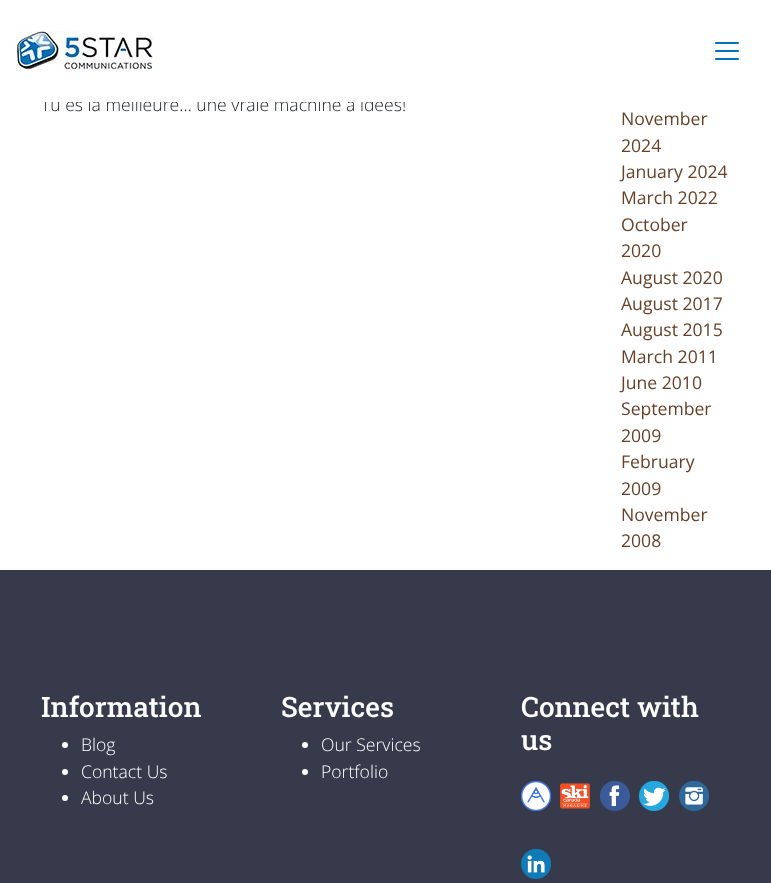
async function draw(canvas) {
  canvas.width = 771;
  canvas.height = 883;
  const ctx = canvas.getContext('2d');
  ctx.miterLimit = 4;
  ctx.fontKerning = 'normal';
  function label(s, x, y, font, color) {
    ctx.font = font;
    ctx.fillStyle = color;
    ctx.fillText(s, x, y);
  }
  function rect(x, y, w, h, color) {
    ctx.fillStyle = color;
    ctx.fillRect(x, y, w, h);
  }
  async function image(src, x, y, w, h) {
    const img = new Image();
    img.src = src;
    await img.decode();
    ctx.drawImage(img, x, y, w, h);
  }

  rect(0, 0, 771, 883, '#fff');
  label('Tu es la meilleure… une vraie machine à idées!', 41, 111, '300 17.6px Open Sans', '#212529');
  rect(40, 97, 365, 5, '#fff');
  await image('assets/img1.png', 16, 31, 138, 40);
  await image('assets/img2.png', 715, 42, 24, 18);
  label('November', 621, 125, '17.6px Open Sans', '#664229');
  label('2024', 621, 152, '17.6px Open Sans', '#664229');
  label('January 2024', 621, 178, '17.6px Open Sans', '#664229');
  label('March 2022', 621, 204, '17.6px Open Sans', '#664229');
  label('October', 621, 231, '17.6px Open Sans', '#664229');
  label('2020', 621, 257, '17.6px Open Sans', '#664229');
  label('August 2020', 621, 284, '17.6px Open Sans', '#664229');
  label('August 2017', 621, 310, '17.6px Open Sans', '#664229');
  label('August 2015', 621, 336, '17.6px Open Sans', '#664229');
  label('March 2011', 621, 363, '17.6px Open Sans', '#664229');
  label('June 2010', 621, 389, '17.6px Open Sans', '#664229');
  label('September', 621, 415, '17.6px Open Sans', '#664229');
  label('2009', 621, 442, '17.6px Open Sans', '#664229');
  label('February', 621, 468, '17.6px Open Sans', '#664229');
  label('2009', 621, 495, '17.6px Open Sans', '#664229');
  label('November', 621, 521, '17.6px Open Sans', '#664229');
  label('2008', 621, 547, '17.6px Open Sans', '#664229');
  rect(0, 570, 771, 313, '#363a4b');
  label('Information', 41, 717, '500 28px Roboto Slab', '#fff');
  ctx.beginPath();
  ctx.arc(65, 745, 3, 0, 2 * Math.PI);
  ctx.fill();
  label('Blog', 81, 751, '300 17.6px Open Sans', '#fff');
  ctx.beginPath();
  ctx.arc(65, 772, 3, 0, 2 * Math.PI);
  ctx.fill();
  label('Contact Us', 81, 778, '300 17.6px Open Sans', '#fff');
  ctx.beginPath();
  ctx.arc(65, 798, 3, 0, 2 * Math.PI);
  ctx.fill();
  label('About Us', 81, 804, '300 17.6px Open Sans', '#fff');
  label('Services', 281, 717, '500 28px Roboto Slab', '#fff');
  ctx.beginPath();
  ctx.arc(305, 745, 3, 0, 2 * Math.PI);
  ctx.fill();
  label('Our Services', 321, 751, '300 17.6px Open Sans', '#fff');
  ctx.beginPath();
  ctx.arc(305, 772, 3, 0, 2 * Math.PI);
  ctx.fill();
  label('Portfolio', 321, 778, '300 17.6px Open Sans', '#fff');
  label('Connect with', 521, 717, '500 28px Roboto Slab', '#fff');
  label('us', 521, 750, '500 28px Roboto Slab', '#fff');
  await image('assets/img3.png', 521, 781, 30, 30);
  await image('assets/img4.png', 560, 783, 30, 26);
  await image('assets/img5.png', 600, 781, 30, 30);
  await image('assets/img6.png', 639, 781, 30, 30);
  await image('assets/img7.png', 679, 781, 30, 30);
  await image('assets/img8.png', 521, 849, 30, 30);
}

draw(document.querySelector('canvas'));
